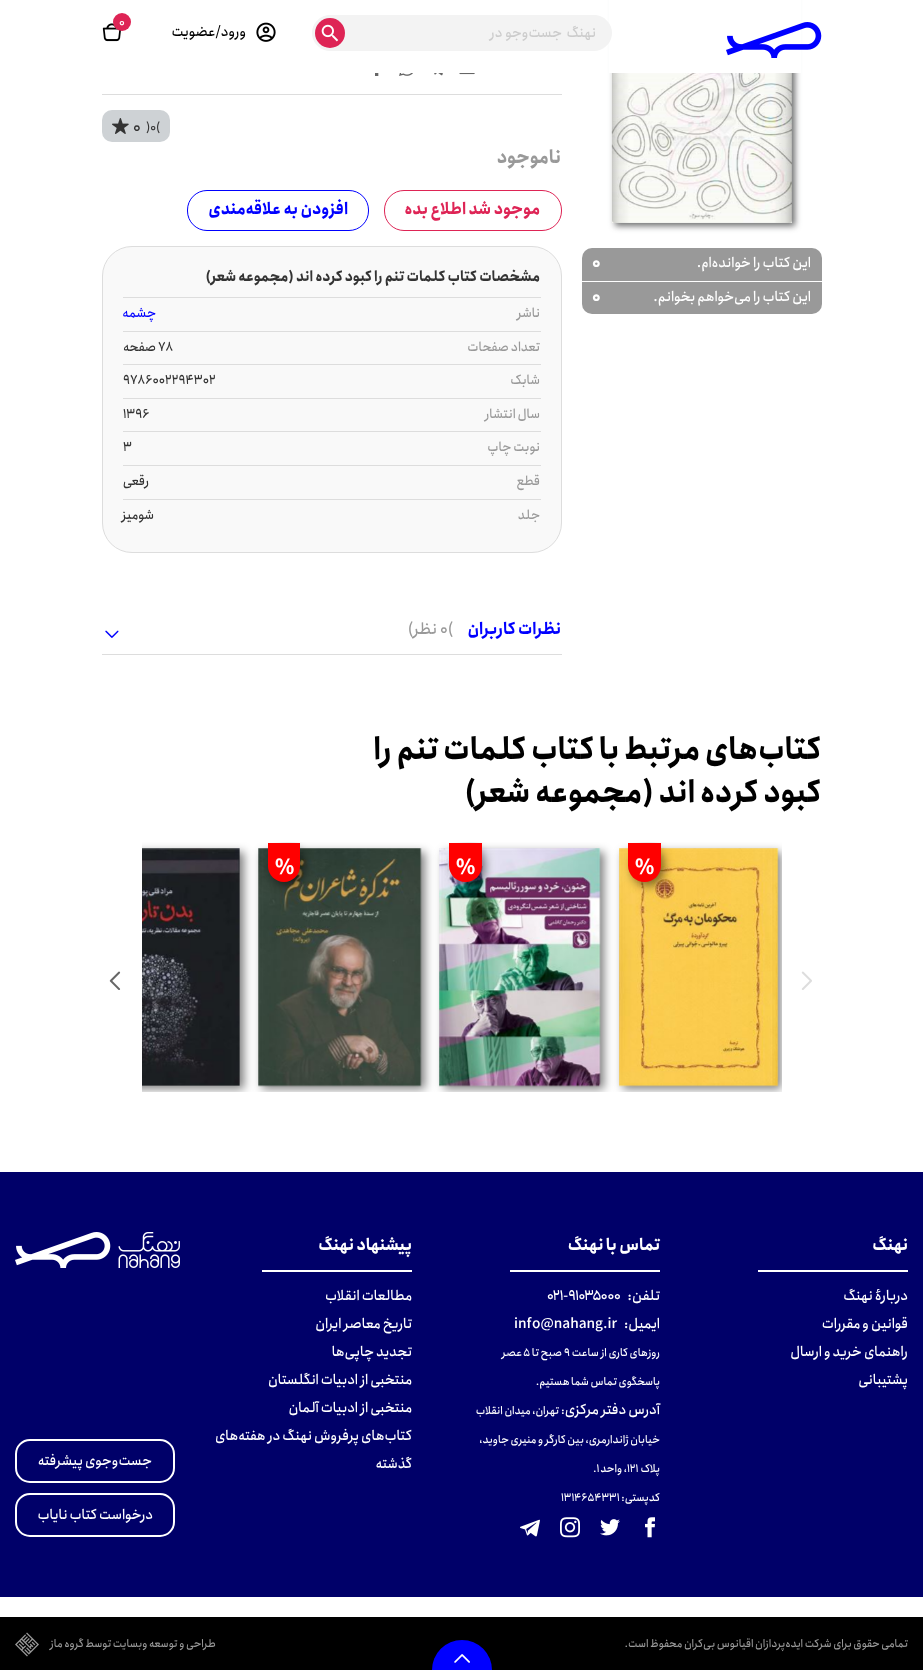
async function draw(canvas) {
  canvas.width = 923;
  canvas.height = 1670;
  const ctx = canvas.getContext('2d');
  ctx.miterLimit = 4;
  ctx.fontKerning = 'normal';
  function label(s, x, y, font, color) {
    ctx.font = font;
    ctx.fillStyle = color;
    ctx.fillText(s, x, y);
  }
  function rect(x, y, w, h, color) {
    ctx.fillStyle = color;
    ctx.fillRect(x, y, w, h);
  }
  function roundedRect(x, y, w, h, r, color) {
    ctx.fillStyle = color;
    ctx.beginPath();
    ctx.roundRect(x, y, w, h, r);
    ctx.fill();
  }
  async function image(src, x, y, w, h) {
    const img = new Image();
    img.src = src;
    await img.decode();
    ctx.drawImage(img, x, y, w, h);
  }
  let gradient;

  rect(0, 0, 923, 1670, '#fff');
  ctx.fillStyle = '#2d2f30b0';
  ctx.filter = 'blur(3px)';
  ctx.beginPath();
  ctx.rect(615, -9, 180, 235);
  ctx.fill();
  ctx.filter = 'none';
  await image('assets/img5.png', 611, 73, 181, 150);
  gradient = ctx.createLinearGradient(612, 93, 792, 93);
  gradient.addColorStop(0, '#00000033');
  gradient.addColorStop(0.04, '#00000012');
  gradient.addColorStop(0.1, '#00000000');
  gradient.addColorStop(0.9, '#00000000');
  gradient.addColorStop(0.96, '#00000012');
  gradient.addColorStop(1, '#00000033');
  ctx.fillStyle = gradient;
  ctx.beginPath();
  ctx.roundRect(612, -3, 180, 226, 3);
  ctx.fill();
  rect(609, 0, 192, 73, '#fff');
  ctx.fillStyle = '#f3f3f3';
  ctx.beginPath();
  ctx.roundRect(312.5, 15.5, 299, 35, 17.5);
  ctx.fill();
  ctx.strokeStyle = '#f3f3f3';
  ctx.stroke();
  ctx.direction = 'rtl';
  label('نهنگ', 596, 37, '500 14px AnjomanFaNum', '#ccc');
  ctx.wordSpacing = '1px';
  label('جست‌وجو در', 562, 37, '500 14px AnjomanFaNum', '#ccc');
  ctx.fillStyle = '#de2455';
  ctx.beginPath();
  ctx.arc(330, 33, 15, 0, 2 * Math.PI);
  ctx.fill();
  await image('assets/img1.png', 321, 24, 18, 18);
  await image('assets/img2.png', 726, 22, 96, 36);
  await image('assets/img3.png', 102, 23, 19, 19);
  ctx.beginPath();
  ctx.arc(122, 22, 9, 0, 2 * Math.PI);
  ctx.fill();
  ctx.wordSpacing = '0px';
  ctx.direction = 'ltr';
  label('0', 119, 26, '500 12px AnjomanFaNum', '#fff');
  await image('assets/img4.png', 256, 22, 20, 20);
  ctx.direction = 'rtl';
  label('ورود/عضویت', 246, 36, '500 14px AnjomanFaNum', '#000');
  ctx.fillStyle = '#999';
  ctx.beginPath();
  ctx.roundRect(582, 248, 240, 34, [10, 10, 0, 0]);
  ctx.fill();
  rect(582, 281, 240, 1, '#fff');
  label('این کتاب را خوانده‌ام.', 811, 267, '500 14px AnjomanFaNum', '#fff');
  ctx.direction = 'ltr';
  label('0', 592, 268, '800 16px AnjomanFaNum', '#fff');
  ctx.fillStyle = '#999';
  ctx.beginPath();
  ctx.roundRect(582, 282, 240, 32, [0, 0, 10, 10]);
  ctx.fill();
  ctx.direction = 'rtl';
  label('این کتاب را می‌خواهم بخوانم.', 811, 301, '500 14px AnjomanFaNum', '#fff');
  ctx.direction = 'ltr';
  label('0', 592, 302, '800 16px AnjomanFaNum', '#fff');
  rect(102, 94, 460, 1, '#ddd');
  await image('assets/img6.png', 459, 73, 16, 2);
  await image('assets/img7.png', 434, 73, 9, 3);
  await image('assets/img8.png', 399, 73, 14, 3);
  await image('assets/img9.png', 375, 73, 4, 3);
  roundedRect(102, 110, 68, 32, 10, '#ced2d5');
  label(')0(', 146, 131, '500 12px AnjomanFaNum', '#333');
  label('0', 133, 132, '500 16px AnjomanFaNum', '#333');
  await image('assets/img10.png', 112, 118, 17, 16);
  ctx.direction = 'rtl';
  label('ناموجود', 561, 163, '800 18px AnjomanFaNum', '#999');
  ctx.beginPath();
  ctx.roundRect(384.5, 190.5, 177, 40, 19.5);
  ctx.strokeStyle = '#de2455';
  ctx.stroke();
  label('موجود شد اطلاع بده', 540, 214, '800 16px AnjomanFaNum', '#de2455');
  ctx.beginPath();
  ctx.roundRect(187.5, 190.5, 181, 40, 19.5);
  ctx.strokeStyle = '#00f';
  ctx.stroke();
  label('افزودن به علاقه‌مندی', 348, 214, '800 16px AnjomanFaNum', '#00f');
  ctx.fillStyle = '#f9f9f9';
  ctx.beginPath();
  ctx.roundRect(102.5, 246.5, 459, 306, 29.5);
  ctx.fill();
  ctx.strokeStyle = '#ddd';
  ctx.stroke();
  label('مشخصات کتاب کلمات تنم را کبود کرده اند (مجموعه شعر)', 540, 281, '800 14px AnjomanFaNum', '#333');
  rect(123, 297, 418, 1, '#ddd');
  label('ناشر', 540, 317, '500 13px AnjomanFaNum', '#999');
  label('چشمه', 156, 317, '500 13px AnjomanFaNum', '#00f');
  rect(123, 331, 418, 1, '#ddd');
  label('تعداد صفحات', 540, 351, '500 13px AnjomanFaNum', '#999');
  ctx.direction = 'ltr';
  label('78', 158, 351, '500 13px AnjomanFaNum', '#333');
  ctx.direction = 'rtl';
  label('صفحه', 156, 351, '500 13px AnjomanFaNum', '#333');
  rect(123, 364, 418, 1, '#ddd');
  label('شابک', 540, 384, '500 13px AnjomanFaNum', '#999');
  ctx.direction = 'ltr';
  label('9786002294302', 123, 384, '500 13px AnjomanFaNum', '#333');
  rect(123, 398, 418, 1, '#ddd');
  ctx.direction = 'rtl';
  label('سال انتشار', 540, 418, '500 13px AnjomanFaNum', '#999');
  ctx.direction = 'ltr';
  label('1396', 123, 418, '500 13px AnjomanFaNum', '#333');
  rect(123, 431, 418, 1, '#ddd');
  ctx.direction = 'rtl';
  label('نوبت چاپ', 540, 451, '500 13px AnjomanFaNum', '#999');
  ctx.direction = 'ltr';
  label('3', 123, 451, '500 13px AnjomanFaNum', '#333');
  rect(123, 465, 418, 1, '#ddd');
  ctx.direction = 'rtl';
  label('قطع', 540, 485, '500 13px AnjomanFaNum', '#999');
  label('رقعی', 149, 485, '500 13px AnjomanFaNum', '#333');
  rect(123, 499, 418, 1, '#ddd');
  label('جلد', 540, 519, '500 13px AnjomanFaNum', '#999');
  label('شومیز', 154, 519, '500 13px AnjomanFaNum', '#333');
  rect(102, 654, 460, 1, '#ddd');
  label('نظرات کاربران', 561, 634, '800 16px AnjomanFaNum', '#00f');
  ctx.direction = 'ltr';
  label('0(', 440, 634, '500 16px AnjomanFaNum', '#999');
  ctx.direction = 'rtl';
  label('نظر)', 437, 634, '500 16px AnjomanFaNum', '#999');
  await image('assets/img11.png', 105, 630, 14, 8);
  label('کتاب‌های مرتبط با کتاب کلمات تنم را', 821, 759, '800 30px AnjomanFaNum', '#000');
  label('کبود کرده اند (مجموعه شعر)', 821, 802, '800 30px AnjomanFaNum', '#000');
  ctx.save();
  ctx.beginPath();
  ctx.rect(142, 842, 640, 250);
  ctx.clip();
  ctx.fillStyle = '#00000080';
  ctx.filter = 'blur(5px)';
  ctx.beginPath();
  ctx.rect(623, 852, 158, 237);
  ctx.fill();
  ctx.filter = 'none';
  ctx.restore();
  await image('assets/img12.png', 619, 848, 160, 239);
  ctx.save();
  ctx.beginPath();
  ctx.rect(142, 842, 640, 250);
  ctx.clip();
  ctx.fillStyle = '#00000080';
  ctx.filter = 'blur(5px)';
  ctx.beginPath();
  ctx.roundRect(632, 847, 32, 39, 16);
  ctx.fill();
  ctx.filter = 'none';
  ctx.restore();
  ctx.fillStyle = '#f00';
  ctx.beginPath();
  ctx.roundRect(628, 843, 33, 39, [0, 0, 16.5, 16.5]);
  ctx.fill();
  ctx.direction = 'ltr';
  label('%', 635, 874, '800 21px AnjomanFaNum', '#fff');
  ctx.save();
  ctx.beginPath();
  ctx.rect(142, 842, 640, 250);
  ctx.clip();
  ctx.fillStyle = '#00000080';
  ctx.filter = 'blur(5px)';
  ctx.beginPath();
  ctx.rect(444, 852, 160, 237);
  ctx.fill();
  ctx.filter = 'none';
  ctx.restore();
  await image('assets/img13.png', 439, 848, 162, 239);
  ctx.save();
  ctx.beginPath();
  ctx.rect(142, 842, 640, 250);
  ctx.clip();
  ctx.fillStyle = '#00000080';
  ctx.filter = 'blur(5px)';
  ctx.beginPath();
  ctx.roundRect(453, 847, 32, 39, 16);
  ctx.fill();
  ctx.filter = 'none';
  ctx.restore();
  ctx.fillStyle = '#f00';
  ctx.beginPath();
  ctx.roundRect(449, 843, 33, 39, [0, 0, 16.5, 16.5]);
  ctx.fill();
  label('%', 456, 874, '800 21px AnjomanFaNum', '#fff');
  ctx.save();
  ctx.beginPath();
  ctx.rect(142, 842, 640, 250);
  ctx.clip();
  ctx.fillStyle = '#00000080';
  ctx.filter = 'blur(5px)';
  ctx.beginPath();
  ctx.rect(262, 852, 163, 237);
  ctx.fill();
  ctx.filter = 'none';
  ctx.restore();
  await image('assets/img14.png', 258, 848, 164, 239);
  ctx.save();
  ctx.beginPath();
  ctx.rect(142, 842, 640, 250);
  ctx.clip();
  ctx.fillStyle = '#00000080';
  ctx.filter = 'blur(5px)';
  ctx.beginPath();
  ctx.roundRect(272, 847, 32, 39, 16);
  ctx.fill();
  ctx.filter = 'none';
  ctx.restore();
  ctx.fillStyle = '#f00';
  ctx.beginPath();
  ctx.roundRect(268, 843, 32, 39, [0, 0, 16, 16]);
  ctx.fill();
  label('%', 275, 874, '800 21px AnjomanFaNum', '#fff');
  await image('assets/img17.png', 109, 971, 12, 19);
  ctx.save();
  ctx.beginPath();
  ctx.rect(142, 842, 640, 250);
  ctx.clip();
  ctx.fillStyle = '#00000080';
  ctx.filter = 'blur(5px)';
  ctx.beginPath();
  ctx.rect(82, 852, 162, 237);
  ctx.fill();
  ctx.filter = 'none';
  ctx.restore();
  await image('assets/img15.png', 142, 848, 98, 238);
  await image('assets/img16.png', 801, 971, 11, 19);
  rect(0, 1172, 923, 425, '#000069');
  rect(758, 1270, 150, 2, '#fff');
  ctx.direction = 'rtl';
  label('نهنگ', 908, 1250, '800 16px AnjomanFaNum', '#fff');
  label('دربارهٔ نهنگ', 908, 1300, '500 14px AnjomanFaNum', '#fff');
  label('قوانین و مقررات', 908, 1328, '500 14px AnjomanFaNum', '#fff');
  label('راهنمای خرید و ارسال', 908, 1356, '500 14px AnjomanFaNum', '#fff');
  label('پشتیبانی', 908, 1384, '500 14px AnjomanFaNum', '#fff');
  rect(510, 1270, 150, 2, '#fff');
  label('تماس با نهنگ', 660, 1250, '800 16px AnjomanFaNum', '#fff');
  label('تلفن:', 660, 1300, '500 14px AnjomanFaNum', '#fff');
  ctx.direction = 'ltr';
  label('۰۲۱-۹۱۰۳۵۰۰۰', 547, 1300, '500 14px AnjomanFaNum', '#fff');
  ctx.direction = 'rtl';
  label('ایمیل:', 660, 1328, '500 14px AnjomanFaNum', '#fff');
  ctx.direction = 'ltr';
  label('info@nahang.ir', 514, 1328, '500 14px AnjomanFaNum', '#fff');
  ctx.direction = 'rtl';
  label('روزهای کاری از ساعت', 660, 1356, '500 11px AnjomanFaNum', '#fff');
  ctx.direction = 'ltr';
  label('۹', 564, 1356, '500 11px AnjomanFaNum', '#fff');
  ctx.direction = 'rtl';
  label('صبح تا', 562, 1356, '500 11px AnjomanFaNum', '#fff');
  ctx.direction = 'ltr';
  label('۵', 523, 1356, '500 11px AnjomanFaNum', '#fff');
  ctx.direction = 'rtl';
  label('عصر', 522, 1356, '500 11px AnjomanFaNum', '#fff');
  label('پاسخگوی تماس شما هستیم.', 660, 1385, '500 11px AnjomanFaNum', '#fff');
  label('آدرس دفتر مرکزی', 660, 1414, '500 14px AnjomanFaNum', '#fff');
  ctx.direction = 'ltr';
  label(':', 561, 1414, '500 12px AnjomanFaNum', '#fff');
  ctx.direction = 'rtl';
  label('تهران، میدان انقلاب', 559, 1414, '500 11px AnjomanFaNum', '#fff');
  label('خیابان ژاندارمری، بین کارگر و منیری جاوید،', 660, 1443, '500 11px AnjomanFaNum', '#fff');
  label('پلاک', 660, 1472, '500 11px AnjomanFaNum', '#fff');
  ctx.direction = 'ltr';
  label('121', 627, 1472, '500 11px AnjomanFaNum', '#fff');
  ctx.direction = 'rtl';
  label('، واحد', 627, 1472, '500 11px AnjomanFaNum', '#fff');
  ctx.direction = 'ltr';
  label('.1', 593, 1472, '500 11px AnjomanFaNum', '#fff');
  ctx.direction = 'rtl';
  label('کدپستی:', 660, 1501, '500 11px AnjomanFaNum', '#fff');
  ctx.direction = 'ltr';
  label('1314654331', 561, 1501, '500 11px AnjomanFaNum', '#fff');
  await image('assets/img18.png', 645, 1517, 10, 21);
  await image('assets/img19.png', 600, 1519, 20, 17);
  await image('assets/img20.png', 560, 1517, 20, 21);
  await image('assets/img21.png', 520, 1519, 20, 18);
  rect(262, 1270, 150, 2, '#fff');
  ctx.direction = 'rtl';
  label('پیشنهاد نهنگ', 412, 1250, '800 16px AnjomanFaNum', '#fff');
  label('مطالعات انقلاب', 412, 1300, '500 14px AnjomanFaNum', '#fff');
  label('تاریخ معاصر ایران', 412, 1328, '500 14px AnjomanFaNum', '#fff');
  label('تجدید چاپی‌ها', 412, 1356, '500 14px AnjomanFaNum', '#fff');
  label('منتخبی از ادبیات انگلستان', 412, 1384, '500 14px AnjomanFaNum', '#fff');
  label('منتخبی از ادبیات آلمان', 412, 1412, '500 14px AnjomanFaNum', '#fff');
  label('کتاب‌های پرفروش نهنگ در هفته‌های', 412, 1440, '500 14px AnjomanFaNum', '#fff');
  label('گذشته', 412, 1468, '500 14px AnjomanFaNum', '#fff');
  await image('assets/img22.png', 15, 1232, 165, 36);
  ctx.beginPath();
  ctx.roundRect(16, 1440, 158, 42, 14);
  ctx.strokeStyle = '#fff';
  ctx.lineWidth = 2;
  ctx.stroke();
  label('جست‌وجوی پیشرفته', 152, 1465, '500 14px AnjomanFaNum', '#fff');
  ctx.beginPath();
  ctx.roundRect(16, 1494, 158, 42, 14);
  ctx.stroke();
  label('درخواست کتاب نایاب', 153, 1519, '500 14px AnjomanFaNum', '#fff');
  rect(0, 1617, 923, 53, '#000');
  label('تمامی حقوق برای شرکت ایده‌پردازان اقیانوس بی‌کران محفوظ است.', 908, 1647, '500 11px AnjomanFaNum', '#999');
  label('طراحی و توسعه وبسایت توسط گروه ماز', 216, 1647, '500 11px AnjomanFaNum', '#999');
  await image('assets/img23.png', 15, 1632, 24, 25);
  ctx.fillStyle = '#00f';
  ctx.beginPath();
  ctx.roundRect(432, 1640, 60, 30, [30, 30, 0, 0]);
  ctx.fill();
  await image('assets/img24.png', 454, 1654, 16, 9);
}

draw(document.querySelector('canvas'));
